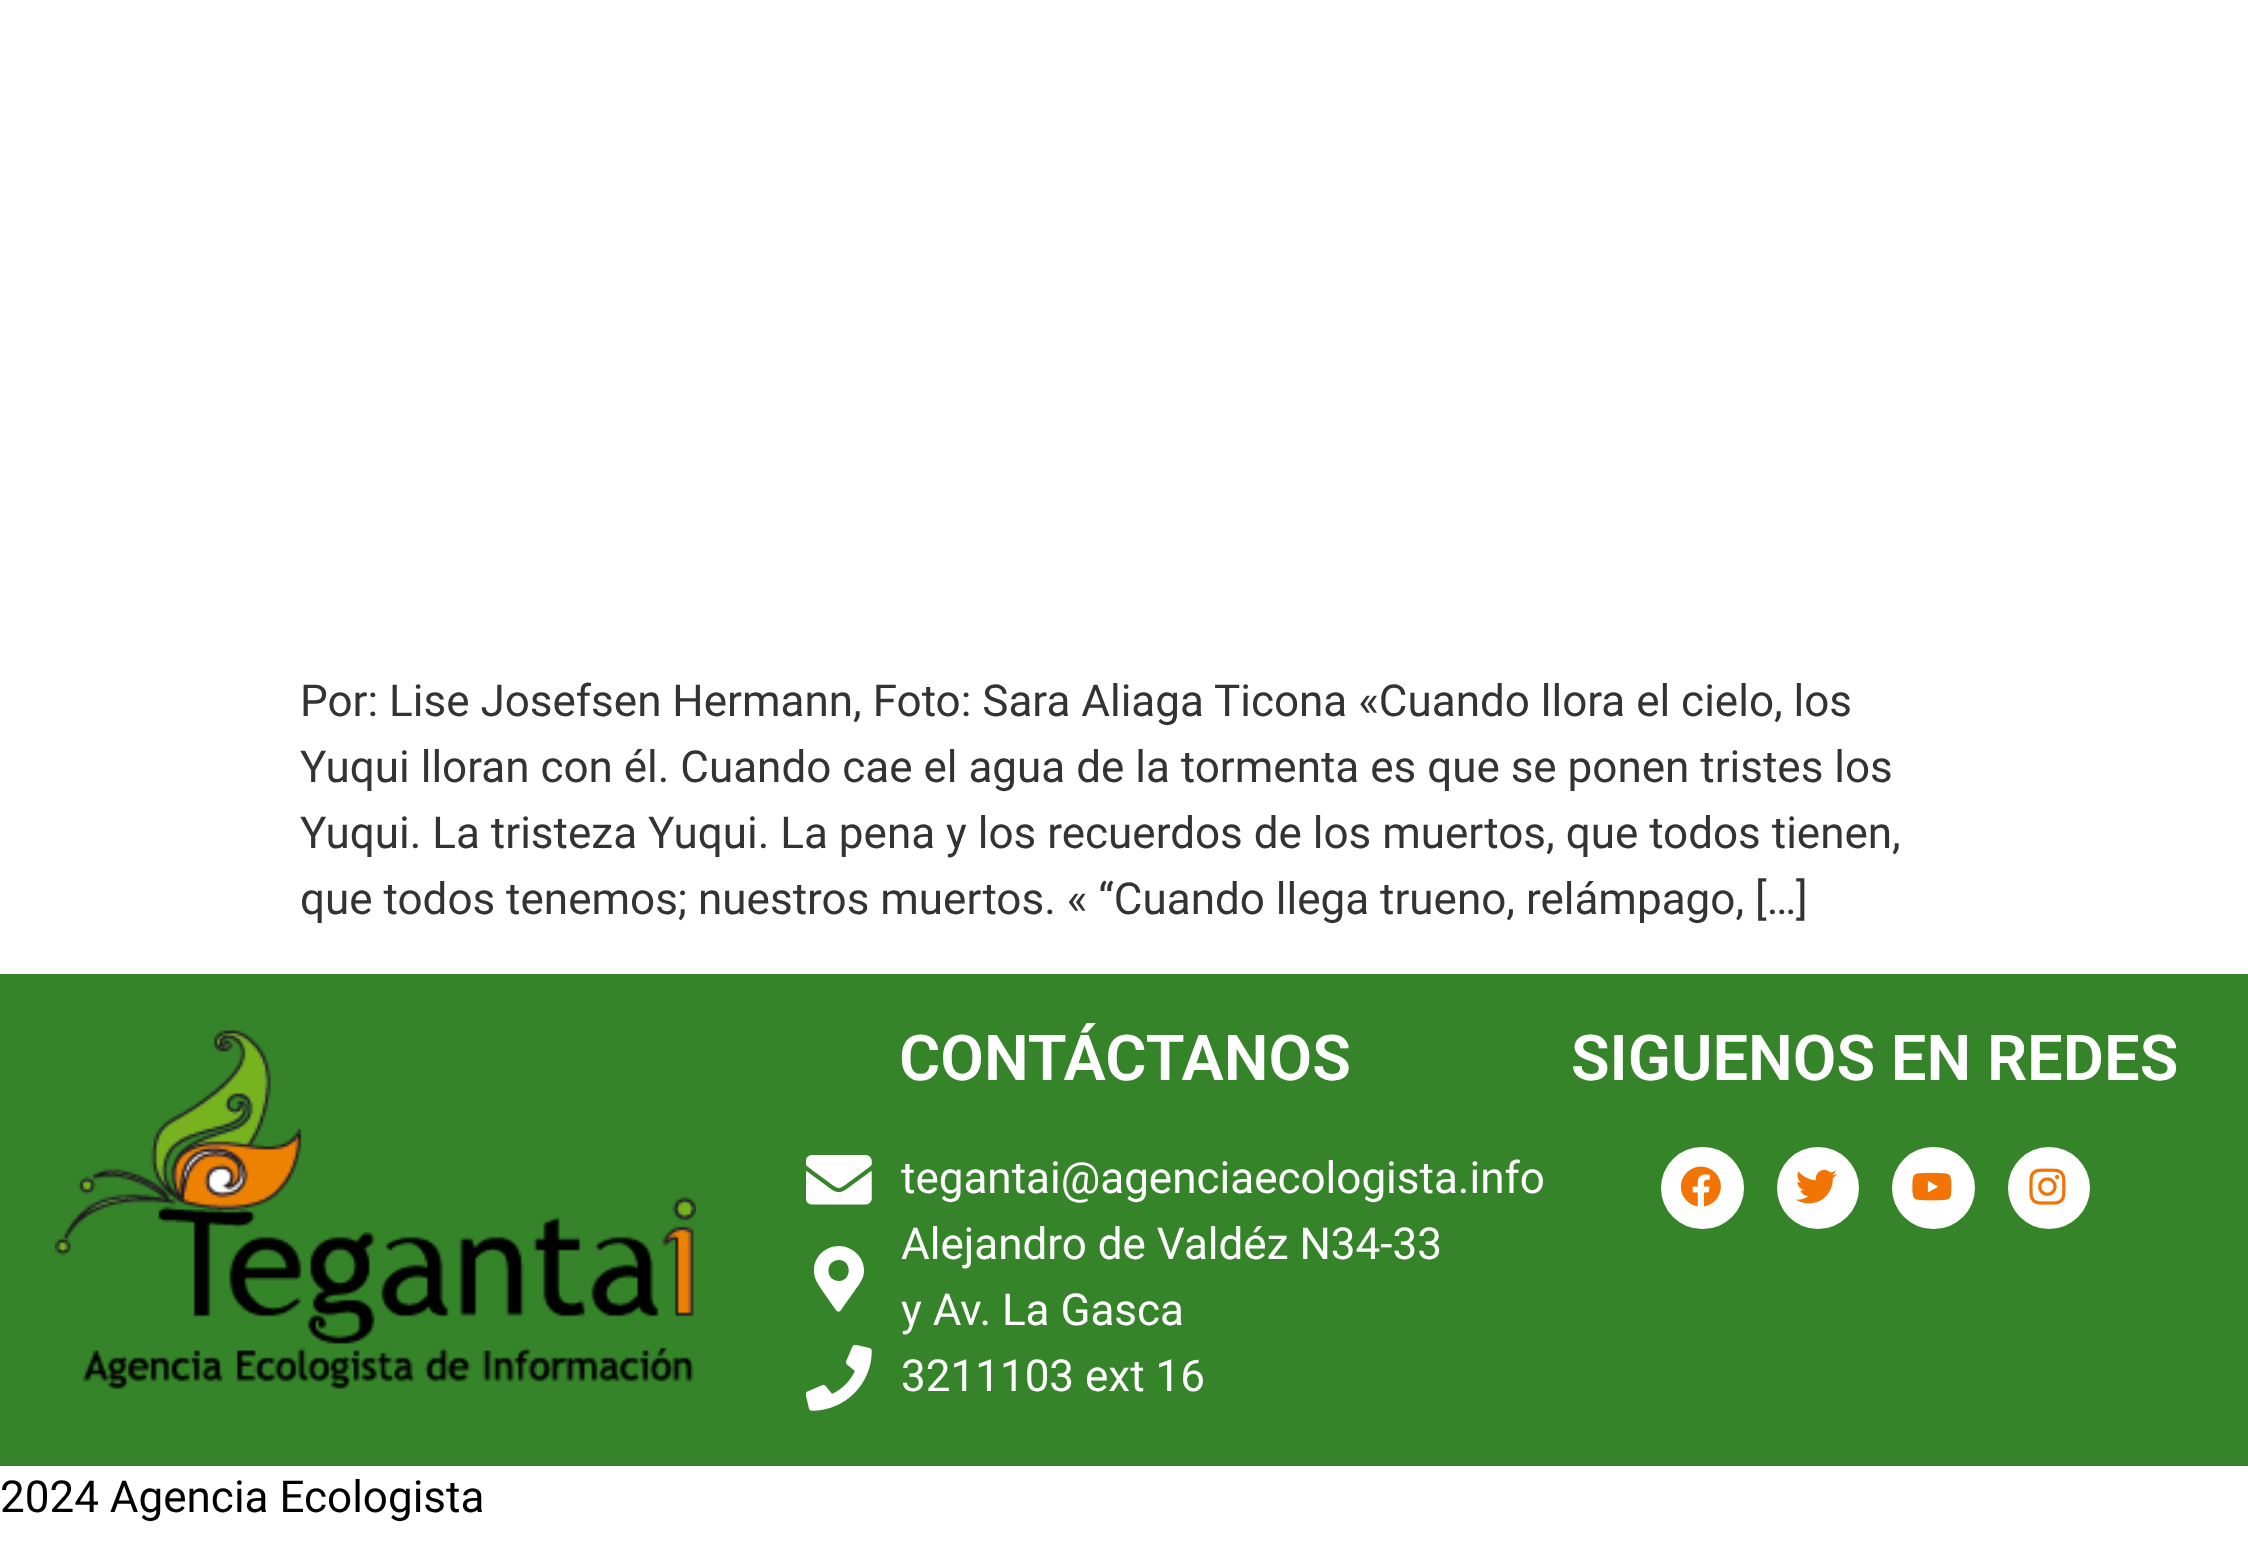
async function draw(canvas) {
  canvas.width = 2248;
  canvas.height = 1548;
  const ctx = canvas.getContext('2d');
  ctx.miterLimit = 4;
  ctx.fontKerning = 'normal';
  function label(s, x, y, font, color) {
    ctx.font = font;
    ctx.fillStyle = color;
    ctx.fillText(s, x, y);
  }
  function rect(x, y, w, h, color) {
    ctx.fillStyle = color;
    ctx.fillRect(x, y, w, h);
  }
  function roundedRect(x, y, w, h, r, color) {
    ctx.fillStyle = color;
    ctx.beginPath();
    ctx.roundRect(x, y, w, h, r);
    ctx.fill();
  }
  async function image(src, x, y, w, h) {
    const img = new Image();
    img.src = src;
    await img.decode();
    ctx.drawImage(img, x, y, w, h);
  }
  let path;

  rect(0, 0, 2248, 1548, '#fff');
  label('Por: Lise Josefsen Hermann, Foto: Sara Aliaga Ticona «Cuando llora el cielo, los', 300, 716, '44px Roboto', '#333');
  label('Yuqui lloran con él. Cuando cae el agua de la tormenta es que se ponen tristes los', 300, 782, '44px Roboto', '#333');
  label('Yuqui. La tristeza Yuqui. La pena y los recuerdos de los muertos, que todos tienen,', 300, 848, '44px Roboto', '#333');
  label('que todos tenemos; nuestros muertos. « “Cuando llega trueno, relámpago, […]', 300, 914, '44px Roboto', '#333');
  rect(0, 974, 2248, 492, '#368429');
  await image('assets/img1.png', 55, 1030, 641, 359);
  label('CONTÁCTANOS', 899, 1080, '600 63.25px Roboto', '#fff');
  await image('assets/img2.png', 806, 1155, 66, 50);
  label('tegantai@agenciaecologista.info', 901, 1193, '44px Roboto', '#fff');
  path = new Path2D('M836 1310C817 1283 814 1280 814 1270C814 1257 825 1246 839 1246C852 1246 864 1257 864 1270C864 1280 860 1283 841 1310C840 1312 837 1312 836 1310ZM839 1281C852 1281 852 1260 839 1260C825 1260 825 1281 839 1281Z');
  ctx.fill(path);
  label('Alejandro de Valdéz N34-33', 901, 1259, '44px Roboto', '#fff');
  label('y Av. La Gasca', 901, 1325, '44px Roboto', '#fff');
  await image('assets/img3.png', 806, 1345, 66, 66);
  label('3211103 ext 16', 901, 1391, '44px Roboto', '#fff');
  label('SIGUENOS EN REDES', 1571, 1080, '600 63.25px Roboto', '#fff');
  roundedRect(1661, 1147, 83, 82, 41, '#fff');
  await image('assets/img4.png', 1680, 1166, 41, 41);
  ctx.beginPath();
  ctx.arc(1818, 1188, 41, 0, 2 * Math.PI);
  ctx.fill();
  await image('assets/img5.png', 1796, 1169, 41, 35);
  roundedRect(1892, 1147, 83, 82, 41, '#fff');
  await image('assets/img6.png', 1912, 1172, 40, 29);
  ctx.beginPath();
  ctx.arc(2049, 1188, 41, 0, 2 * Math.PI);
  ctx.fill();
  await image('assets/img7.png', 2029, 1168, 37, 37);
  label('2024 Agencia Ecologista', 0, 1512, '44px Roboto', '#000');
}

draw(document.querySelector('canvas'));
